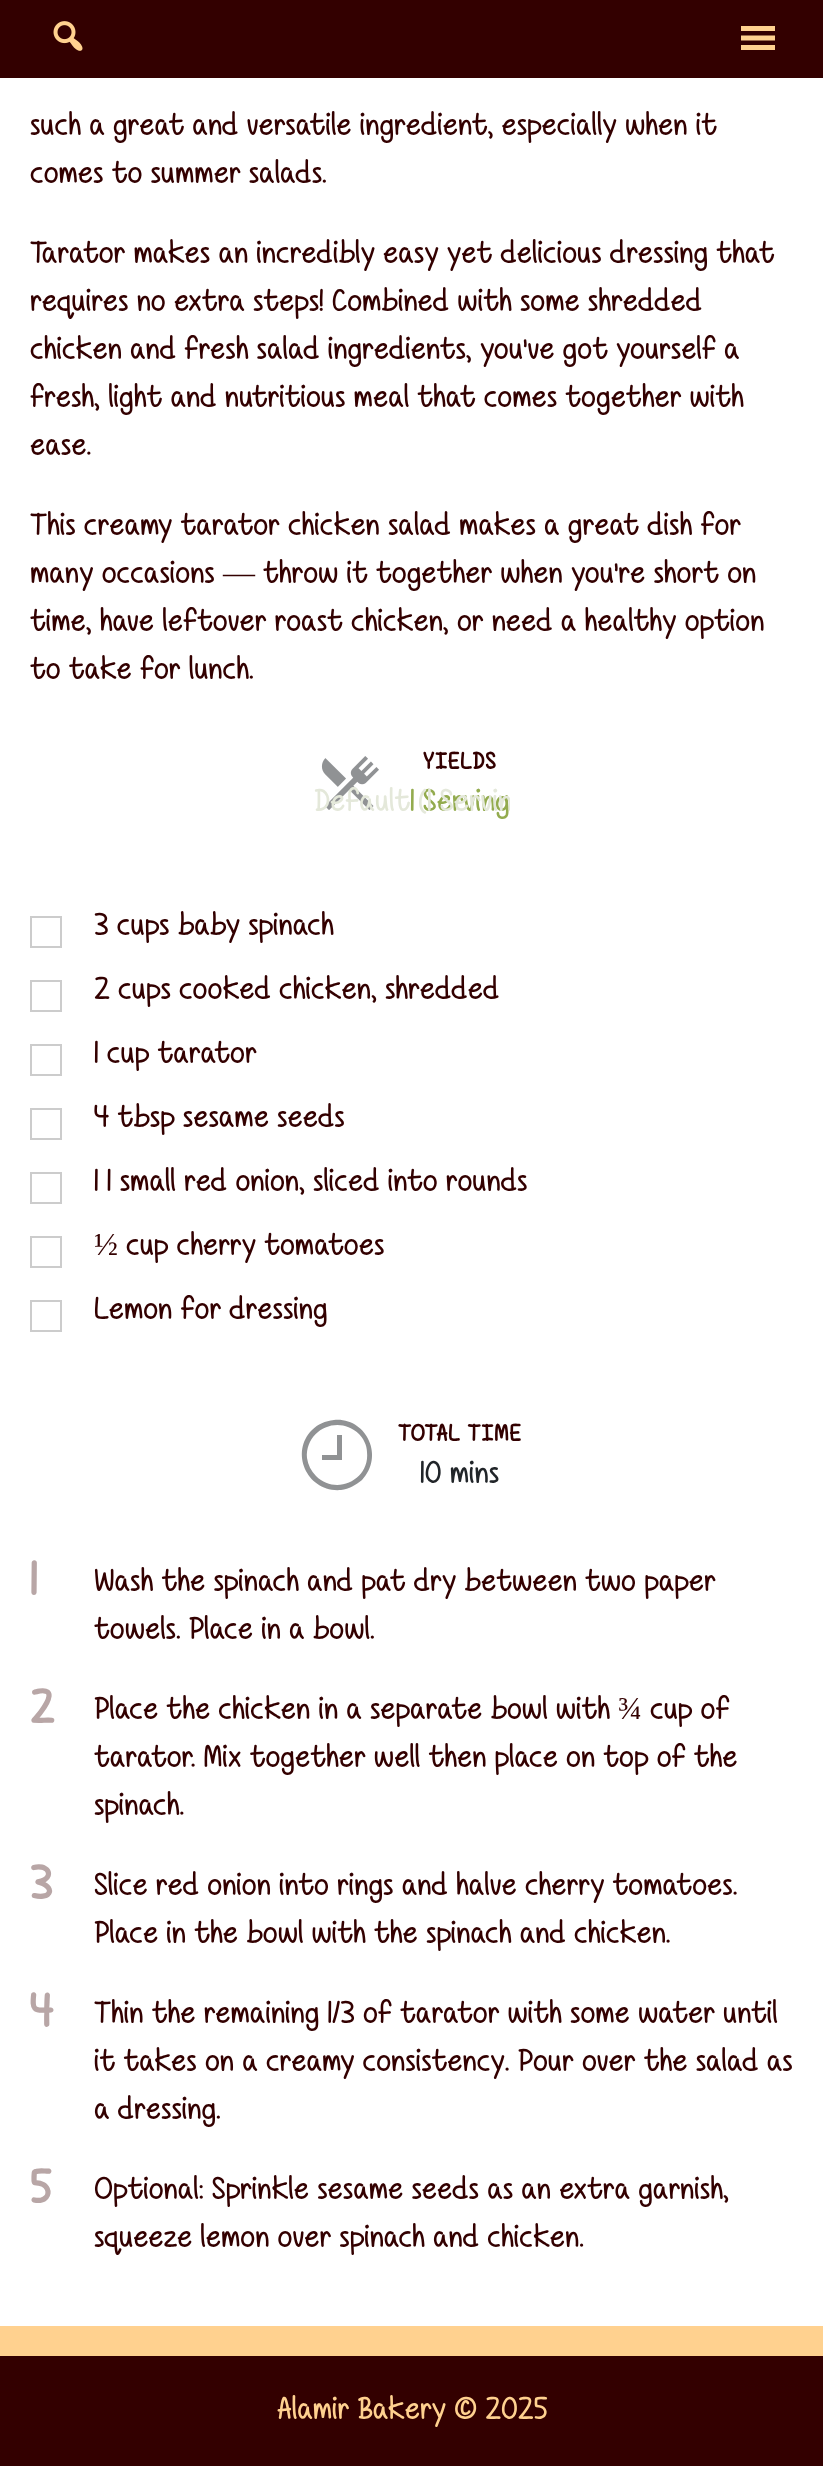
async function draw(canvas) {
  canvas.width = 823;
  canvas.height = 2466;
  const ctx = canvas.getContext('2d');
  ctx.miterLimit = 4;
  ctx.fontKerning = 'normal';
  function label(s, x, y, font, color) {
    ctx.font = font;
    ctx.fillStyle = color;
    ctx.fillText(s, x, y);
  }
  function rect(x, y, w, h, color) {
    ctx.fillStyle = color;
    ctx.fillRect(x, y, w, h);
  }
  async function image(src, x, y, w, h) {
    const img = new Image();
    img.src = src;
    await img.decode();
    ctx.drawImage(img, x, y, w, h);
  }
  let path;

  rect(0, 0, 823, 2466, '#fff');
  rect(0, 0, 823, 78, '#300');
  await image('assets/img1.png', 53, 21, 30, 30);
  ctx.fillStyle = '#ffd18f';
  path = new Path2D('M741 50H775V45H741ZM741 26V31H775V26ZM741 40.5H775V35.5H741Z');
  ctx.fill(path);
  label('such a great and versatile ingredient, especially when it', 30, 135, '32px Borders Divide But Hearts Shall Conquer', '#300');
  label('comes to summer salads.', 30, 183, '32px Borders Divide But Hearts Shall Conquer', '#300');
  label('Tarator makes an incredibly easy yet delicious dressing that', 30, 263, '32px Borders Divide But Hearts Shall Conquer', '#300');
  label('requires no extra steps! Combined with some shredded', 30, 311, '32px Borders Divide But Hearts Shall Conquer', '#300');
  label('chicken and fresh salad ingredients, you\'ve got yourself a', 30, 359, '32px Borders Divide But Hearts Shall Conquer', '#300');
  label('fresh, light and nutritious meal that comes together with', 30, 407, '32px Borders Divide But Hearts Shall Conquer', '#300');
  label('ease.', 30, 455, '32px Borders Divide But Hearts Shall Conquer', '#300');
  label('This creamy tarator chicken salad makes a great dish for', 30, 535, '32px Borders Divide But Hearts Shall Conquer', '#300');
  label('many occasions', 30, 583, '32px Borders Divide But Hearts Shall Conquer', '#300');
  label('—', 223, 583, '32px Liberation Serif', '#300');
  label('throw it together when you\'re short on', 263, 583, '32px Borders Divide But Hearts Shall Conquer', '#300');
  label('time, have leftover roast chicken, or need a healthy option', 30, 631, '32px Borders Divide But Hearts Shall Conquer', '#300');
  label('to take for lunch.', 30, 679, '32px Borders Divide But Hearts Shall Conquer', '#300');
  await image('assets/img2.png', 321, 756, 58, 54);
  ctx.letterSpacing = '1px';
  label('YIELDS', 423, 769, 'bold 24px Borders Divide But Hearts Shall Conquer', '#300');
  ctx.letterSpacing = '0px';
  label('1 Serving', 410, 811, '32px Borders Divide But Hearts Shall Conquer', '#93ab4e');
  ctx.save();
  ctx.beginPath();
  ctx.rect(314, 782, 196, 40);
  ctx.clip();
  label('Default (1 Servin', 314, 811, '32px Borders Divide But Hearts Shall Conquer', '#e4e8da');
  ctx.restore();
  ctx.strokeStyle = '#ccc';
  ctx.lineWidth = 2;
  ctx.strokeRect(31, 917, 30, 30);
  label('3 cups baby spinach', 94, 935, '32px Borders Divide But Hearts Shall Conquer', '#300');
  ctx.strokeRect(31, 981, 30, 30);
  label('2 cups cooked chicken, shredded', 94, 999, '32px Borders Divide But Hearts Shall Conquer', '#300');
  ctx.strokeRect(31, 1045, 30, 30);
  label('1 cup tarator', 94, 1063, '32px Borders Divide But Hearts Shall Conquer', '#300');
  ctx.strokeRect(31, 1109, 30, 30);
  label('4 tbsp sesame seeds', 94, 1127, '32px Borders Divide But Hearts Shall Conquer', '#300');
  ctx.strokeRect(31, 1173, 30, 30);
  label('1 1 small red onion, sliced into rounds', 94, 1191, '32px Borders Divide But Hearts Shall Conquer', '#300');
  ctx.strokeRect(31, 1237, 30, 30);
  label('½', 94, 1255, '32px Liberation Serif', '#300');
  label('cup cherry tomatoes', 126, 1255, '32px Borders Divide But Hearts Shall Conquer', '#300');
  ctx.strokeRect(31, 1301, 30, 30);
  label('Lemon for dressing', 94, 1319, '32px Borders Divide But Hearts Shall Conquer', '#300');
  ctx.fillStyle = '#909294';
  path = new Path2D('M312 1430C318 1424 325 1421 334 1420C366 1417 385 1456 362 1480C356 1485 349 1489 341 1490C308 1493 289 1453 312 1430ZM316 1476C336 1496 370 1480 367 1452C367 1445 363 1438 359 1434C338 1414 305 1430 307 1458C308 1465 311 1471 316 1476ZM337 1455V1435H342V1460H322V1455Z');
  ctx.fill(path);
  ctx.letterSpacing = '1px';
  label('TOTAL TIME', 398, 1441, 'bold 24px Borders Divide But Hearts Shall Conquer', '#300');
  ctx.letterSpacing = '0px';
  label('10 mins', 420, 1483, '32px Borders Divide But Hearts Shall Conquer', '#212529');
  label('1', 30, 1595, 'bold 48px Borders Divide But Hearts Shall Conquer', '#b8a6a6');
  label('Wash the spinach and pat dry between two paper', 94, 1591, '32px Borders Divide But Hearts Shall Conquer', '#300');
  label('towels. Place in a bowl.', 94, 1639, '32px Borders Divide But Hearts Shall Conquer', '#300');
  label('2', 30, 1723, 'bold 48px Borders Divide But Hearts Shall Conquer', '#b8a6a6');
  label('Place the chicken in a separate bowl with', 94, 1719, '32px Borders Divide But Hearts Shall Conquer', '#300');
  label('¾', 618, 1719, '32px Liberation Serif', '#300');
  label('cup of', 650, 1719, '32px Borders Divide But Hearts Shall Conquer', '#300');
  label('tarator. Mix together well then place on top of the', 94, 1767, '32px Borders Divide But Hearts Shall Conquer', '#300');
  label('spinach.', 94, 1815, '32px Borders Divide But Hearts Shall Conquer', '#300');
  label('3', 30, 1899, 'bold 48px Borders Divide But Hearts Shall Conquer', '#b8a6a6');
  label('Slice red onion into rings and halve cherry tomatoes.', 94, 1895, '32px Borders Divide But Hearts Shall Conquer', '#300');
  label('Place in the bowl with the spinach and chicken.', 94, 1943, '32px Borders Divide But Hearts Shall Conquer', '#300');
  label('4', 30, 2027, 'bold 48px Borders Divide But Hearts Shall Conquer', '#b8a6a6');
  label('Thin the remaining 1/3 of tarator with some water until', 94, 2023, '32px Borders Divide But Hearts Shall Conquer', '#300');
  label('it takes on a creamy consistency. Pour over the salad as', 94, 2071, '32px Borders Divide But Hearts Shall Conquer', '#300');
  label('a dressing.', 94, 2119, '32px Borders Divide But Hearts Shall Conquer', '#300');
  label('5', 30, 2203, 'bold 48px Borders Divide But Hearts Shall Conquer', '#b8a6a6');
  label('Optional: Sprinkle sesame seeds as an extra garnish,', 94, 2199, '32px Borders Divide But Hearts Shall Conquer', '#300');
  label('squeeze lemon over spinach and chicken.', 94, 2247, '32px Borders Divide But Hearts Shall Conquer', '#300');
  rect(0, 2326, 823, 30, '#ffd18f');
  rect(0, 2356, 823, 110, '#300');
  label('Alamir Bakery © 2025', 277, 2419, '32px Borders Divide But Hearts Shall Conquer', '#ffd18f');
}

draw(document.querySelector('canvas'));
